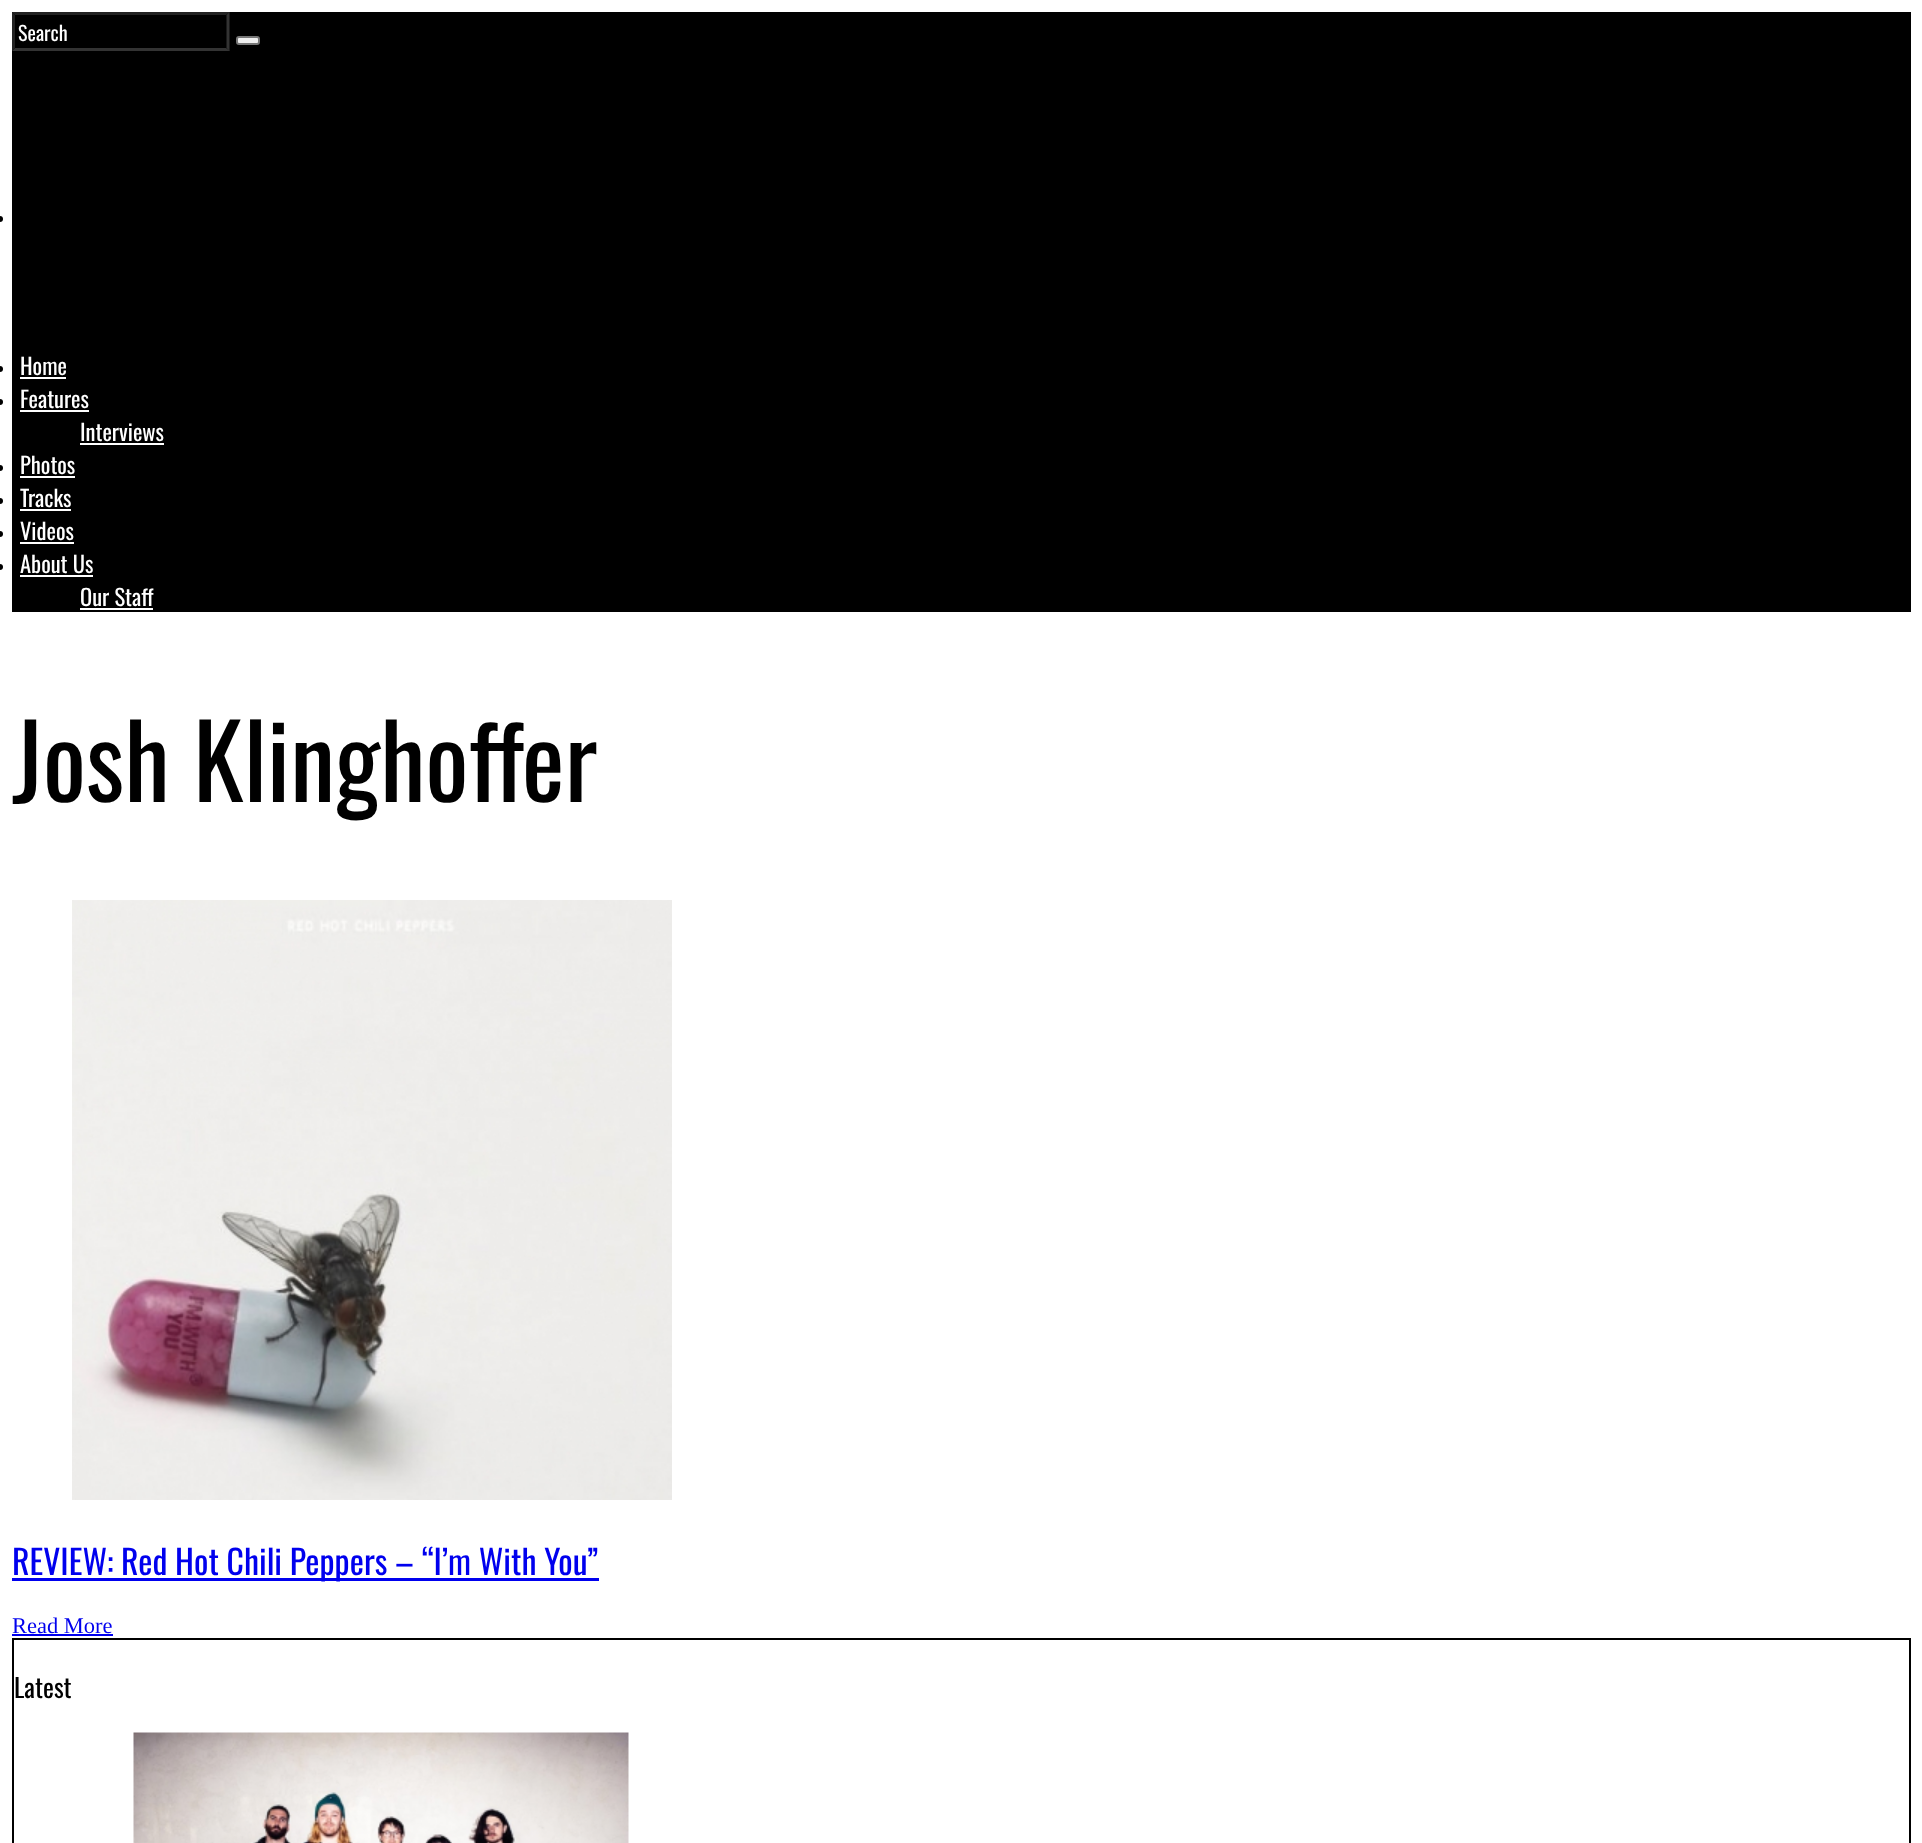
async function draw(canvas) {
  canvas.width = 1922;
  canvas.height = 1843;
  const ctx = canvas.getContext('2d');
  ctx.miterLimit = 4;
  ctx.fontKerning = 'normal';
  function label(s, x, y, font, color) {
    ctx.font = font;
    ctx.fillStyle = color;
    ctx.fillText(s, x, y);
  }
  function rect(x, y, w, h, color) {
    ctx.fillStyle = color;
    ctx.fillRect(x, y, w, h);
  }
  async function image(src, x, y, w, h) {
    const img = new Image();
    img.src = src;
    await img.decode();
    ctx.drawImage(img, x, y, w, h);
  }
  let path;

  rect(0, 0, 1922, 1843, '#fff');
  rect(12, 12, 1899, 600, '#000');
  ctx.fillStyle = '#222';
  path = new Path2D('M12 12H230L226 15H15Z');
  ctx.fill(path);
  ctx.fillStyle = '#333';
  path = new Path2D('M229.5 12V51L226.5 48V15Z');
  ctx.fill(path);
  path = new Path2D('M230 51H12L15 48H226Z');
  ctx.fill(path);
  ctx.fillStyle = '#222';
  path = new Path2D('M12 51V12L15 15V48Z');
  ctx.fill(path);
  label('Search', 18, 41, '20px Oswald', '#fff');
  ctx.fillStyle = '#efefef';
  ctx.beginPath();
  ctx.roundRect(237, 37, 22, 7, 2);
  ctx.fill();
  ctx.strokeStyle = '#767676';
  ctx.lineWidth = 2;
  ctx.stroke();
  ctx.fillStyle = '#000';
  ctx.beginPath();
  ctx.arc(0, 219, 3, 0, 2 * Math.PI);
  ctx.fill();
  ctx.beginPath();
  ctx.arc(0, 369, 3, 0, 2 * Math.PI);
  ctx.fill();
  label('Home', 20, 375, '22.5px Oswald', '#fff');
  rect(20, 377, 46, 2, '#fff');
  ctx.fillStyle = '#000';
  ctx.beginPath();
  ctx.arc(0, 402, 3, 0, 2 * Math.PI);
  ctx.fill();
  label('Features', 20, 408, '22.5px Oswald', '#fff');
  rect(20, 410, 69, 2, '#fff');
  label('Interviews', 80, 441, '22.5px Oswald', '#fff');
  rect(80, 443, 84, 2, '#fff');
  ctx.fillStyle = '#000';
  ctx.beginPath();
  ctx.arc(0, 468, 3, 0, 2 * Math.PI);
  ctx.fill();
  label('Photos', 20, 474, '22.5px Oswald', '#fff');
  rect(20, 476, 55, 2, '#fff');
  ctx.fillStyle = '#000';
  ctx.beginPath();
  ctx.arc(0, 501, 3, 0, 2 * Math.PI);
  ctx.fill();
  label('Tracks', 20, 507, '22.5px Oswald', '#fff');
  rect(20, 509, 51, 2, '#fff');
  ctx.fillStyle = '#000';
  ctx.beginPath();
  ctx.arc(0, 534, 3, 0, 2 * Math.PI);
  ctx.fill();
  label('Videos', 20, 540, '22.5px Oswald', '#fff');
  rect(20, 542, 54, 2, '#fff');
  ctx.fillStyle = '#000';
  ctx.beginPath();
  ctx.arc(0, 567, 3, 0, 2 * Math.PI);
  ctx.fill();
  label('About Us', 20, 573, '22.5px Oswald', '#fff');
  rect(20, 575, 73, 2, '#fff');
  label('Our Staff', 80, 606, '22.5px Oswald', '#fff');
  rect(80, 608, 73, 2, '#fff');
  label('Josh Klinghoffer', 12, 802, '102px Oswald', '#000');
  await image('assets/img1.png', 72, 900, 600, 600);
  rect(12, 1578, 587, 3, '#00e');
  label('REVIEW: Red Hot Chili Peppers – “I’m With You”', 12, 1575, '33.75px Oswald', '#00e');
  label('Read More', 12, 1633, '22.5px Liberation Serif', '#00e');
  rect(12, 1634, 101, 2, '#00e');
  ctx.strokeStyle = '#000';
  ctx.strokeRect(13, 1639, 1897, 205);
  label('Latest', 14, 1698, '26px Oswald', '#000');
  await image('assets/img2.png', 133, 1732, 496, 111);
}

draw(document.querySelector('canvas'));
